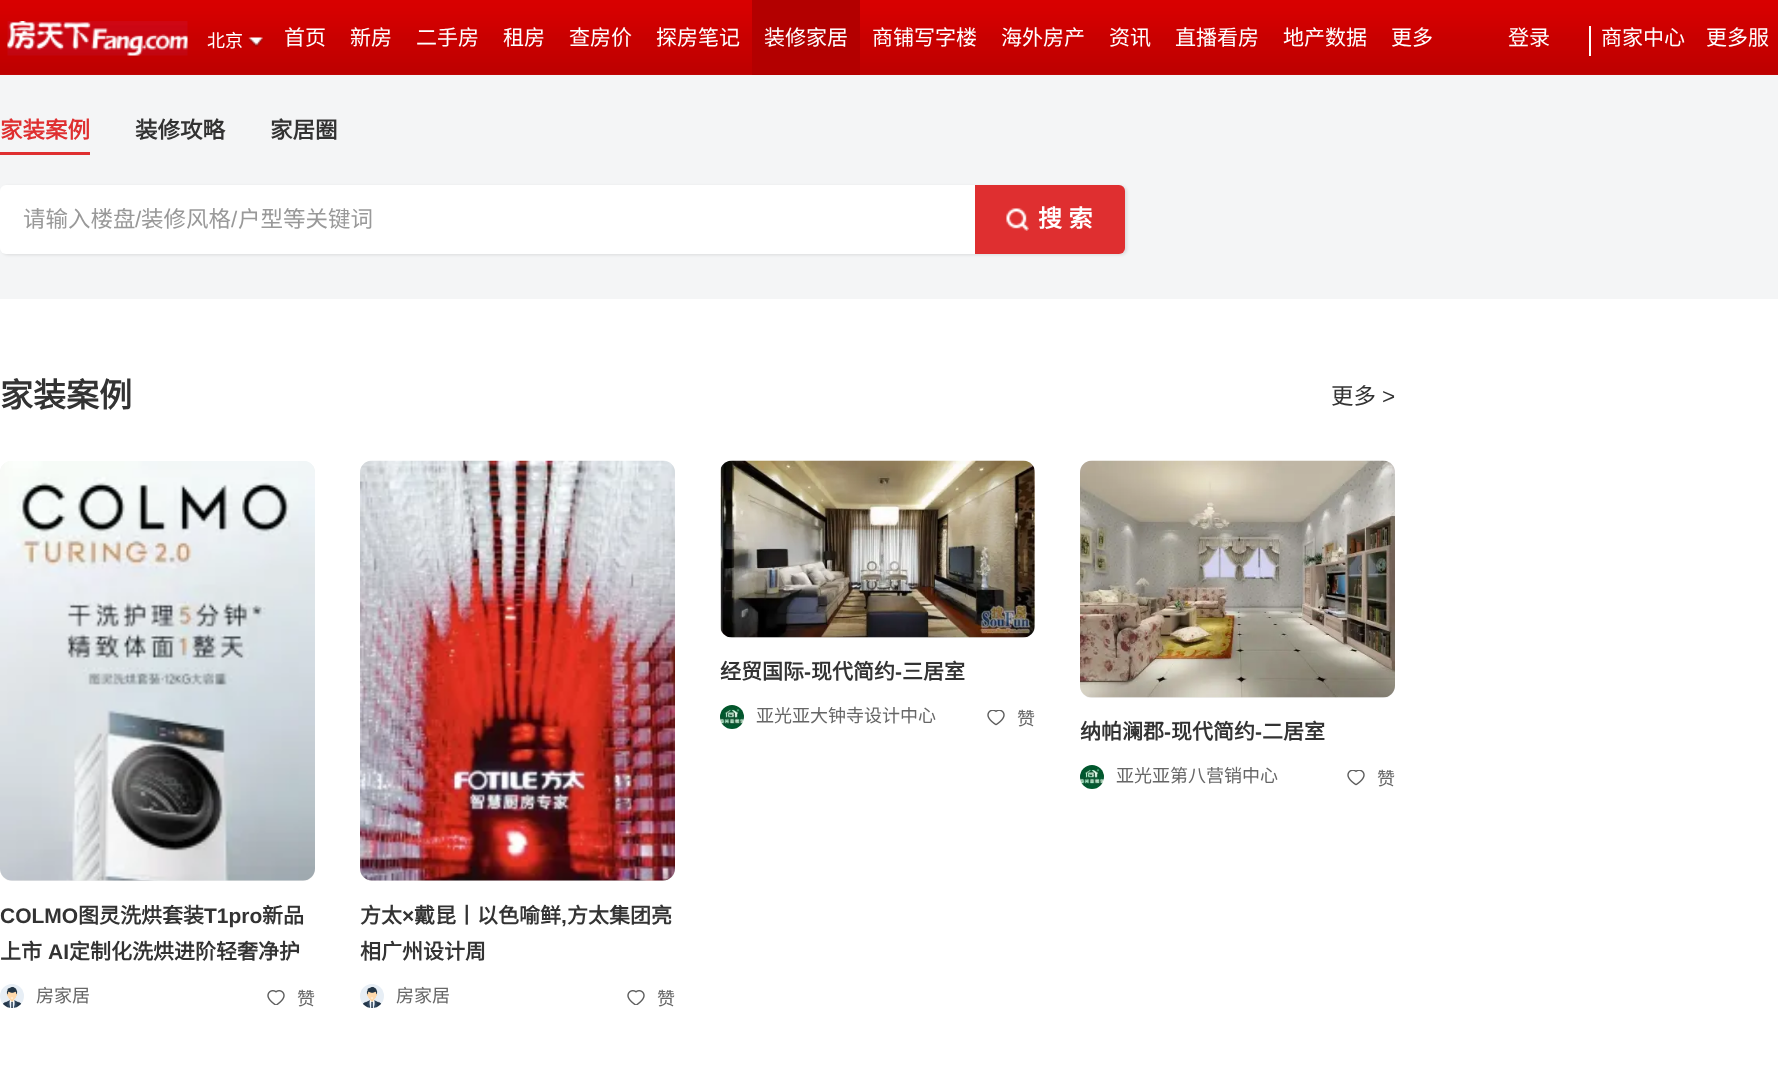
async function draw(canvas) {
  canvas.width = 1778;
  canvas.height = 1088;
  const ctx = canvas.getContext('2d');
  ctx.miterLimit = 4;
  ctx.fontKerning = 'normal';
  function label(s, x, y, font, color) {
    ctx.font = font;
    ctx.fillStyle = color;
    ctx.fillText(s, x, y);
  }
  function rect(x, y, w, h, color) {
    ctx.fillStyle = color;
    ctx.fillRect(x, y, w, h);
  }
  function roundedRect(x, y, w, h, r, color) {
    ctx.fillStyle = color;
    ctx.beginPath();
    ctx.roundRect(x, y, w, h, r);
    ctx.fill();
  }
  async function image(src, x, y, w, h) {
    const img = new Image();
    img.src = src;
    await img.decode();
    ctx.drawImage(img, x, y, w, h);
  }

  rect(0, 0, 1778, 1088, '#fff');
  await image('assets/img1.png', 0, 0, 1778, 74);
  rect(0, 74, 1778, 1, '#bf0707');
  await image('assets/img2.png', 7, 21, 181, 35);
  label('北京', 207, 47, '18px Noto Sans CJK SC', '#fff');
  await image('assets/img3.png', 248, 37, 15, 10);
  label('首页', 284, 45, '21px Noto Sans CJK SC', '#fff');
  label('新房', 350, 45, '21px Noto Sans CJK SC', '#fff');
  label('二手房', 416, 45, '21px Noto Sans CJK SC', '#fff');
  label('租房', 503, 45, '21px Noto Sans CJK SC', '#fff');
  label('查房价', 569, 45, '21px Noto Sans CJK SC', '#fff');
  label('探房笔记', 656, 45, '21px Noto Sans CJK SC', '#fff');
  rect(752, 0, 108, 75, '#b30000');
  label('装修家居', 764, 45, '21px Noto Sans CJK SC', '#fff');
  label('商铺写字楼', 872, 45, '21px Noto Sans CJK SC', '#fff');
  label('海外房产', 1001, 45, '21px Noto Sans CJK SC', '#fff');
  label('资讯', 1109, 45, '21px Noto Sans CJK SC', '#fff');
  label('直播看房', 1175, 45, '21px Noto Sans CJK SC', '#fff');
  label('地产数据', 1283, 45, '21px Noto Sans CJK SC', '#fff');
  label('更多', 1391, 45, '21px Noto Sans CJK SC', '#fff');
  label('登录', 1508, 45, '21px Noto Sans CJK SC', '#fff');
  rect(1589, 26, 2, 30, '#fff');
  label('商家中心', 1601, 45, '21px Noto Sans CJK SC', '#fff');
  label('更多服', 1706, 45, '21px Noto Sans CJK SC', '#fff');
  rect(0, 75, 1778, 224, '#f4f5f6');
  rect(0, 152, 90, 3, '#df2f30');
  label('家装案例', 0, 138, 'bold 22.5px Noto Sans CJK SC', '#df2f30');
  label('装修攻略', 135, 138, 'bold 22.5px Noto Sans CJK SC', '#333');
  label('家居圈', 270, 138, 'bold 22.5px Noto Sans CJK SC', '#333');
  ctx.fillStyle = '#0000001a';
  ctx.filter = 'blur(1.5px)';
  ctx.beginPath();
  ctx.roundRect(2, 186, 1125, 69, 6);
  ctx.fill();
  ctx.filter = 'none';
  ctx.fillStyle = '#fff';
  ctx.beginPath();
  ctx.roundRect(0, 185, 975, 69, [6, 0, 0, 6]);
  ctx.fill();
  label('请输入楼盘', 23, 227, '22.5px Noto Sans CJK SC', '#999');
  label('/', 135, 227, '22.5px Liberation Sans', '#999');
  label('装修风格', 141, 227, '22.5px Noto Sans CJK SC', '#999');
  label('/', 231, 227, '22.5px Liberation Sans', '#999');
  label('户型等关键词', 238, 227, '22.5px Noto Sans CJK SC', '#999');
  ctx.fillStyle = '#df2f30';
  ctx.beginPath();
  ctx.roundRect(975, 185, 150, 69, [0, 6, 6, 0]);
  ctx.fill();
  await image('assets/img4.png', 1006, 208, 23, 23);
  ctx.wordSpacing = '1px';
  label('搜 索', 1038, 227, 'bold 24px Noto Sans CJK SC', '#fff');
  ctx.wordSpacing = '0px';
  label('家装案例', 0, 407, 'bold 33px Noto Sans CJK SC', '#333');
  label('更多', 1331, 404, '22.5px Noto Sans CJK SC', '#333');
  label('>', 1382, 404, '22.5px Liberation Sans', '#333');
  roundedRect(720, 461, 315, 177, 12, '#eee');
  await image('assets/img5.png', 720, 460, 315, 178);
  label('经贸国际', 720, 679, 'bold 21px Noto Sans CJK SC', '#333');
  label('-', 804, 679, 'bold 21px Liberation Sans', '#333');
  label('现代简约', 811, 679, 'bold 21px Noto Sans CJK SC', '#333');
  label('-', 895, 679, 'bold 21px Liberation Sans', '#333');
  label('三居室', 902, 679, 'bold 21px Noto Sans CJK SC', '#333');
  await image('assets/img6.png', 720, 705, 24, 24);
  label('亚光亚大钟寺设计中心', 756, 722, '18px Noto Sans CJK SC', '#666');
  await image('assets/img7.png', 987, 710, 18, 16);
  label('赞', 1017, 725, '18px Noto Sans CJK SC', '#666');
  roundedRect(1080, 461, 315, 237, 12, '#eee');
  await image('assets/img8.png', 1080, 460, 315, 238);
  label('纳帕澜郡', 1080, 739, 'bold 21px Noto Sans CJK SC', '#333');
  label('-', 1164, 739, 'bold 21px Liberation Sans', '#333');
  label('现代简约', 1171, 739, 'bold 21px Noto Sans CJK SC', '#333');
  label('-', 1255, 739, 'bold 21px Liberation Sans', '#333');
  label('二居室', 1262, 739, 'bold 21px Noto Sans CJK SC', '#333');
  await image('assets/img9.png', 1080, 765, 24, 24);
  label('亚光亚第八营销中心', 1116, 782, '18px Noto Sans CJK SC', '#666');
  await image('assets/img7.png', 1347, 770, 18, 16);
  label('赞', 1377, 785, '18px Noto Sans CJK SC', '#666');
  roundedRect(0, 461, 315, 420, 12, '#eee');
  await image('assets/img10.png', 0, 461, 315, 420);
  label('COLMO', 0, 923, 'bold 21px Liberation Sans', '#333');
  label('图灵洗烘套装', 78, 923, 'bold 21px Noto Sans CJK SC', '#333');
  label('T1pro', 204, 923, 'bold 21px Liberation Sans', '#333');
  label('新品', 262, 923, 'bold 21px Noto Sans CJK SC', '#333');
  label('上市', 0, 959, 'bold 21px Noto Sans CJK SC', '#333');
  label('AI', 48, 959, 'bold 21px Liberation Sans', '#333');
  label('定制化洗烘进阶轻奢净护', 69, 959, 'bold 21px Noto Sans CJK SC', '#333');
  await image('assets/img11.png', 0, 984, 24, 24);
  label('房家居', 36, 1002, '18px Noto Sans CJK SC', '#666');
  await image('assets/img12.png', 267, 990, 18, 15);
  label('赞', 297, 1005, '18px Noto Sans CJK SC', '#666');
  roundedRect(360, 461, 315, 420, 12, '#eee');
  await image('assets/img13.png', 360, 460, 315, 421);
  label('方太', 360, 923, 'bold 21px Noto Sans CJK SC', '#333');
  label('×', 402, 923, 'bold 21px Liberation Sans', '#333');
  label('戴昆丨以色喻鲜', 414, 923, 'bold 21px Noto Sans CJK SC', '#333');
  label('方太集团亮', 567, 923, 'bold 21px Noto Sans CJK SC', '#333');
  label(',', 561, 923, 'bold 21px Liberation Sans', '#333');
  label('相广州设计周', 360, 959, 'bold 21px Noto Sans CJK SC', '#333');
  await image('assets/img14.png', 360, 984, 24, 24);
  label('房家居', 396, 1002, '18px Noto Sans CJK SC', '#666');
  await image('assets/img12.png', 627, 990, 18, 15);
  label('赞', 657, 1005, '18px Noto Sans CJK SC', '#666');
}

draw(document.querySelector('canvas'));
